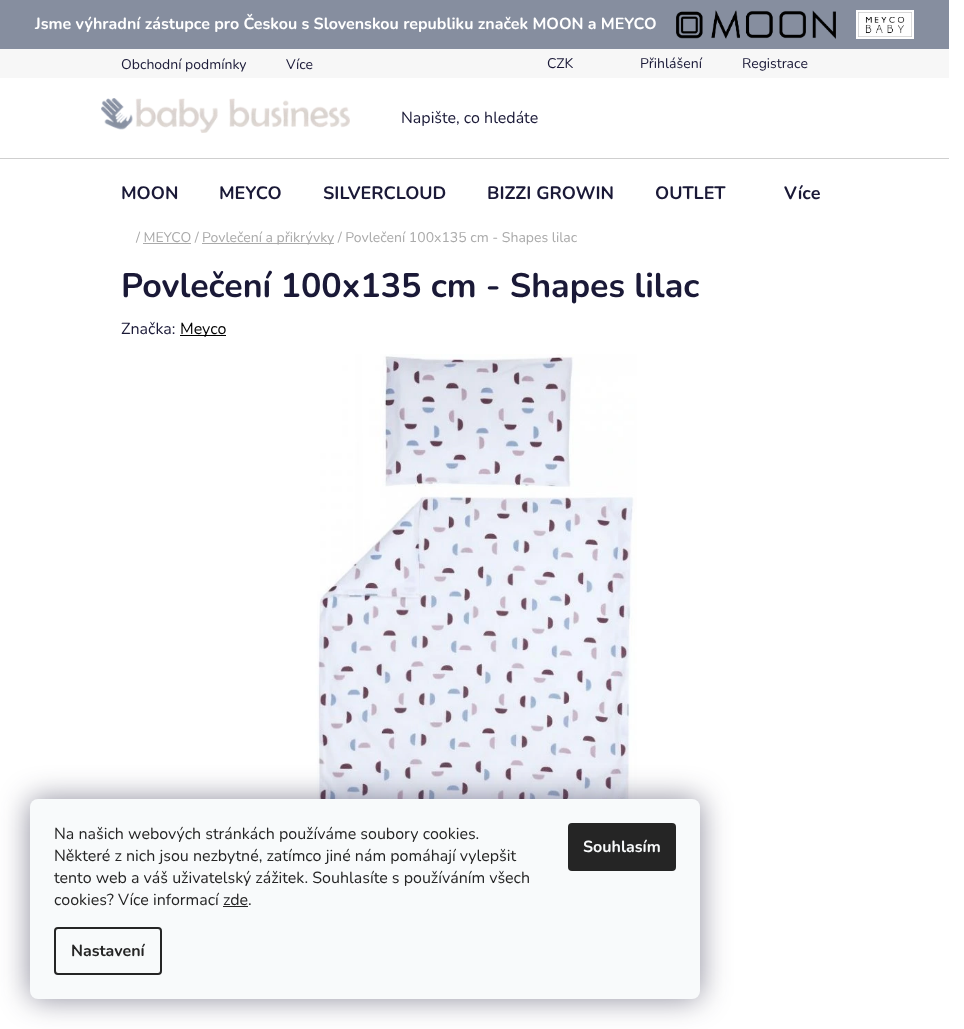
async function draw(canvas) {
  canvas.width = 964;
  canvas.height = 1029;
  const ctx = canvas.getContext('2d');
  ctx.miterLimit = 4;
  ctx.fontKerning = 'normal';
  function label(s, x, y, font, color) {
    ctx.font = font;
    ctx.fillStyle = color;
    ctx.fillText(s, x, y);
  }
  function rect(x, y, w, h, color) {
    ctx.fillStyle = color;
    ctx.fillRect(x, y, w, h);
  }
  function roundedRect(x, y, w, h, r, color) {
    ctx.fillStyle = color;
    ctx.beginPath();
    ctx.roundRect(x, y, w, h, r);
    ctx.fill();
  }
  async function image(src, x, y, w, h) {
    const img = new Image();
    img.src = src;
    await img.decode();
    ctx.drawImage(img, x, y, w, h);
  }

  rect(0, 0, 964, 1029, '#fff');
  rect(0, 0, 949, 49, '#868e9f');
  label('Jsme výhradní zástupce pro Českou s Slovenskou republiku značek MOON a MEYCO', 35, 29, 'bold 16px Nunito', '#fff');
  await image('assets/img1.png', 676, 10, 160, 29);
  await image('assets/img2.png', 856, 10, 58, 29);
  rect(0, 49, 949, 29, '#f7f7f7');
  label('Obchodní podmínky', 121, 69, '14px Nunito', '#1a1937');
  label('Více', 286, 69, '14px Nunito', '#1a1937');
  label('CZK', 547, 68, '14px Nunito', '#1a1937');
  label('Přihlášení', 640, 68, '14px Nunito', '#1a1937');
  label('Registrace', 742, 68, '14px Nunito', '#1a1937');
  await image('assets/img3.png', 101, 98, 249, 35);
  label('Napište, co hledáte', 401, 123, '16px Nunito', '#1a1937');
  rect(0, 158, 949, 1, '#cfcfcf');
  label('MOON', 121, 199, 'bold 18px Nunito', '#1a1937');
  label('MEYCO', 219, 199, 'bold 18px Nunito', '#1a1937');
  label('SILVERCLOUD', 323, 199, 'bold 18px Nunito', '#1a1937');
  label('BIZZI GROWIN', 487, 199, 'bold 18px Nunito', '#1a1937');
  label('OUTLET', 655, 199, 'bold 18px Nunito', '#1a1937');
  label('Více', 784, 199, 'bold 18px Nunito', '#1a1937');
  label('/ MEYCO /', 136, 242, '14px Nunito', '#aaa');
  rect(202, 243, 132, 1, '#aaa');
  label('Povlečení a přikrývky / Povlečení 100x135 cm - Shapes lilac', 202, 242, '14px Nunito', '#aaa');
  rect(143, 243, 48, 1, '#aaa');
  label('Povlečení 100x135 cm - Shapes lilac', 121, 297, 'bold 34px Nunito', '#1a1937');
  label('Značka:', 121, 334, '16px Nunito', '#1a1937');
  rect(180, 335, 46, 1, '#000');
  label('Meyco', 180, 334, '16px Nunito', '#000');
  await image('assets/img4.png', 315, 354, 322, 445);
  ctx.fillStyle = '#1b193980';
  ctx.filter = 'blur(15px)';
  ctx.beginPath();
  ctx.roundRect(30, 799, 670, 200, 8);
  ctx.fill();
  ctx.filter = 'none';
  roundedRect(30, 799, 670, 200, 8, '#f8fafb');
  label('Na našich webových stránkách používáme soubory cookies.', 54, 839, '16px Nunito', '#252525');
  label('Některé z nich jsou nezbytné, zatímco jiné nám pomáhají vylepšit', 54, 861, '16px Nunito', '#252525');
  label('tento web a váš uživatelský zážitek. Souhlasíte s používáním všech', 54, 883, '16px Nunito', '#252525');
  label('cookies? Více informací zde.', 54, 905, '16px Nunito', '#252525');
  rect(223, 906, 25, 1, '#252525');
  ctx.beginPath();
  ctx.roundRect(55, 928, 106, 46, 3);
  ctx.strokeStyle = '#252525';
  ctx.lineWidth = 2;
  ctx.stroke();
  label('Nastavení', 71, 956, 'bold 16px Nunito', '#252525');
  roundedRect(568, 823, 108, 48, 4, '#252525');
  label('Souhlasím', 583, 852, 'bold 16px Nunito', '#f8fafb');
}

draw(document.querySelector('canvas'));
